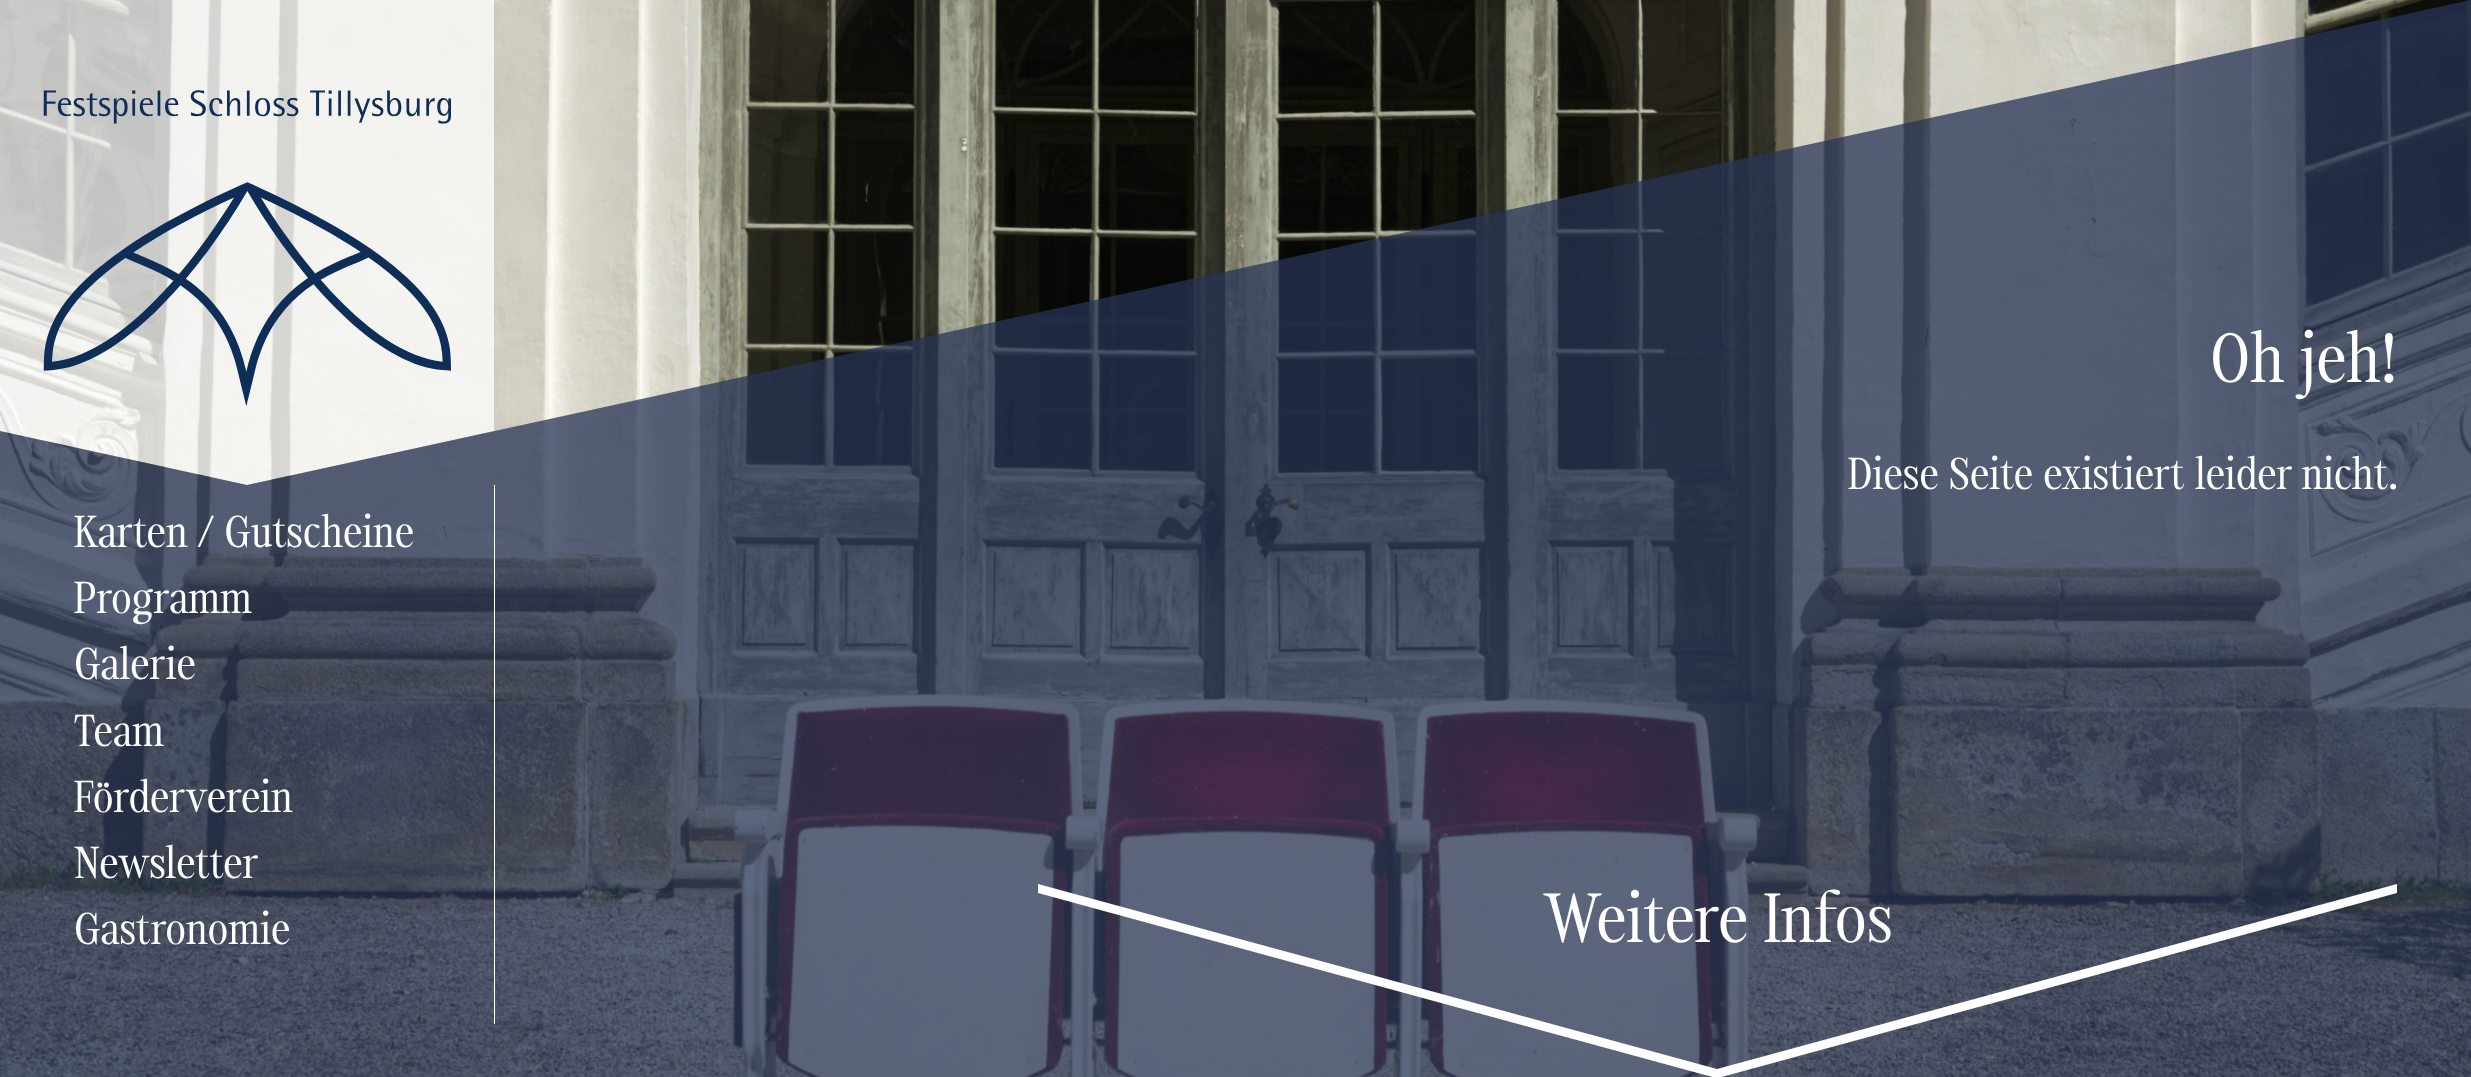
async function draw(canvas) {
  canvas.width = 2471;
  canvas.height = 1077;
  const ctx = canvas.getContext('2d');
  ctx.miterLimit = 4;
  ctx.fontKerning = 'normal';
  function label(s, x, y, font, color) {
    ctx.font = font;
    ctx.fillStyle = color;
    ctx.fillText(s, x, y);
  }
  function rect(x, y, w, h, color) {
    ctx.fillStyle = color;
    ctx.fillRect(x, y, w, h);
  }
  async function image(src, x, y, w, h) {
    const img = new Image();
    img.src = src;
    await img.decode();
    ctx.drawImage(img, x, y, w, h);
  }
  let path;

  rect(0, 0, 2471, 1077, '#fff');
  await image('assets/img1.png', 0, 0, 2471, 1077);
  ctx.fillStyle = '#ffffffbf';
  path = new Path2D('M0 0H494V431L247 485L0 431Z');
  ctx.fill(path);
  ctx.fillStyle = '#273456bf';
  path = new Path2D('M0 431L247 485L2471 0V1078H0Z');
  ctx.fill(path);
  await image('assets/img2.png', 43, 90, 408, 316);
  label('Oh jeh!', 2210, 382, '69.25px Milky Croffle', '#fff');
  label('Diese Seite existiert leider nicht.', 1848, 489, '44.5px Milky Croffle', '#fff');
  label('Karten / Gutscheine', 74, 547, '44.5px Milky Croffle', '#fff');
  label('Programm', 74, 613, '44.5px Milky Croffle', '#fff');
  label('Galerie', 74, 679, '44.5px Milky Croffle', '#fff');
  label('Team', 74, 746, '44.5px Milky Croffle', '#fff');
  label('Förderverein', 74, 812, '44.5px Milky Croffle', '#fff');
  label('Newsletter', 74, 878, '44.5px Milky Croffle', '#fff');
  label('Gastronomie', 74, 944, '44.5px Milky Croffle', '#fff');
  rect(494, 485, 1, 539, '#fff');
  path = new Path2D('M1717 1069L2397 884V893L1718 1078H1716L1038 893V884Z');
  ctx.fill(path, 'evenodd');
  label('Weitere Infos', 1543, 942, '69.25px Milky Croffle', '#fff');
}

draw(document.querySelector('canvas'));
